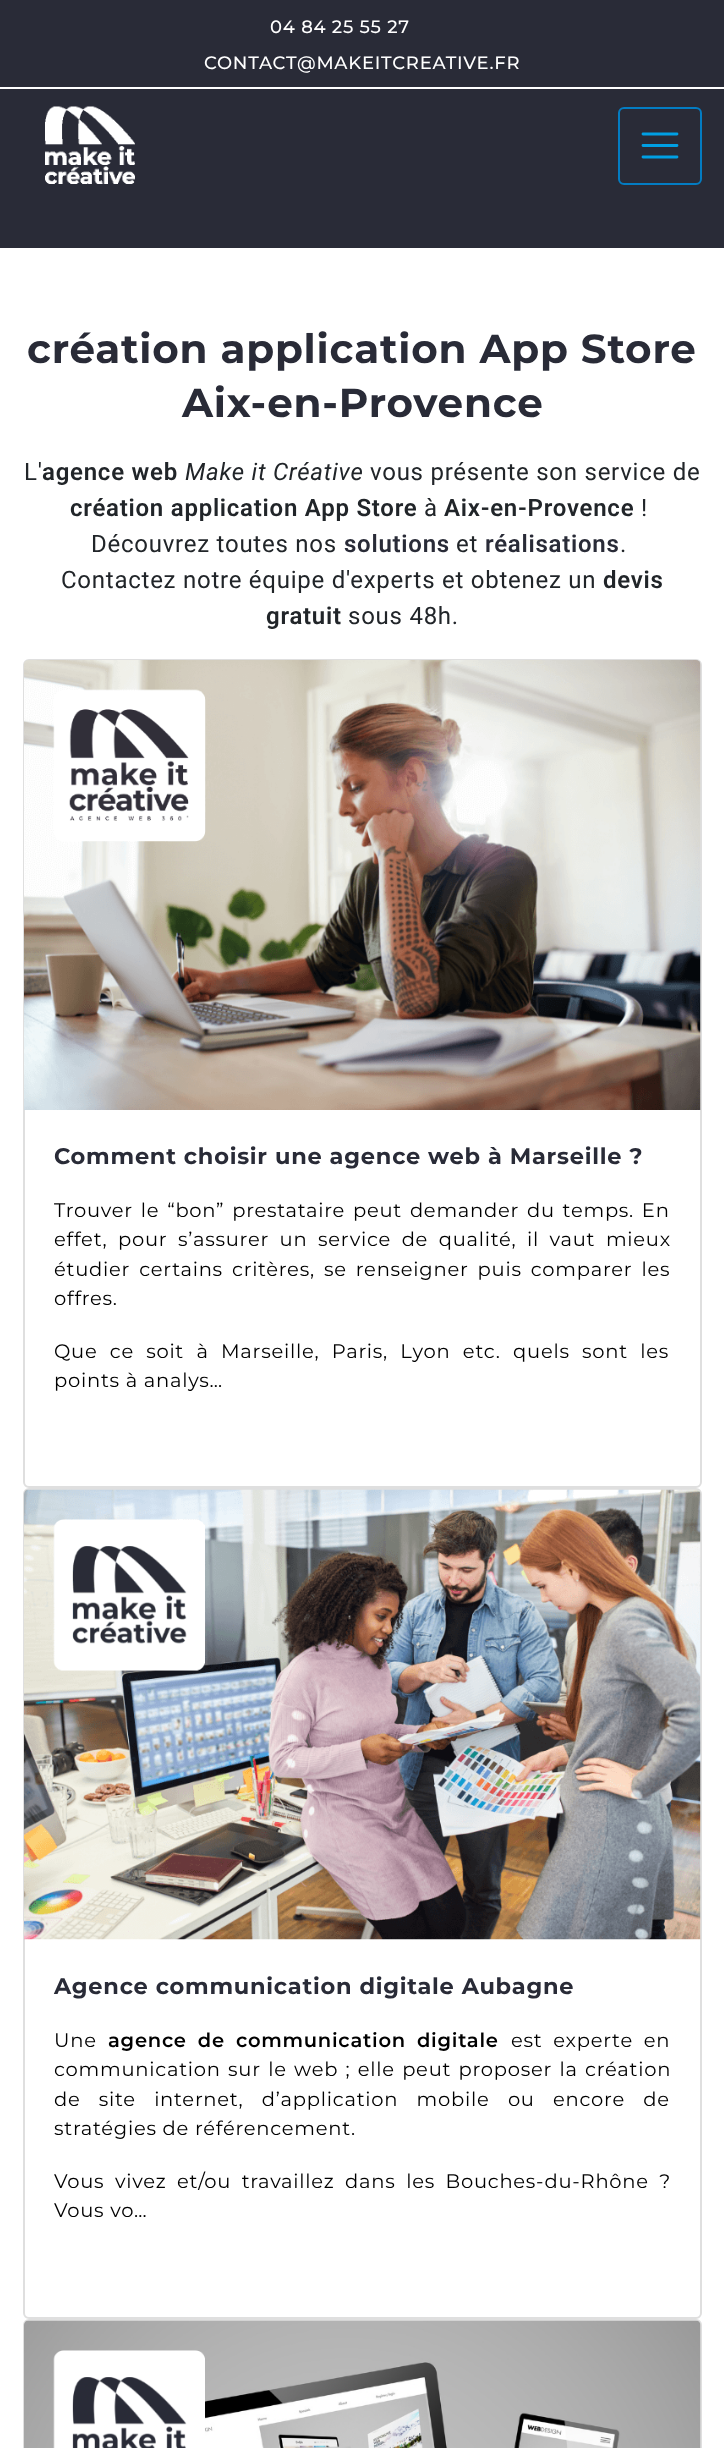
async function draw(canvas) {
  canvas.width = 724;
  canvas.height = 2448;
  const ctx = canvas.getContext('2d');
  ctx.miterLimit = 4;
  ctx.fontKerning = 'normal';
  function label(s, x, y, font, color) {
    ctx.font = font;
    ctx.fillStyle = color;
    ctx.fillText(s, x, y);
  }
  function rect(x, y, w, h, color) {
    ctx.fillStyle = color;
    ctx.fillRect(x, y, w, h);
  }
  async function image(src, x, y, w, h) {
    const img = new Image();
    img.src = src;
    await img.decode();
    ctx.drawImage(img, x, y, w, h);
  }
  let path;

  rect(0, 0, 724, 2448, '#fff');
  rect(0, 0, 724, 87, '#292b37');
  ctx.letterSpacing = '0.75px';
  label('04 84 25 55 27', 270, 33, '500 18px Montserrat', '#fff');
  label('CONTACT@MAKEITCREATIVE.FR', 204, 69, '500 18px Montserrat', '#fff');
  rect(0, 89, 724, 159, '#292b37');
  await image('assets/img1.png', 45, 106, 90, 78);
  ctx.beginPath();
  ctx.roundRect(619, 108, 82, 76, 5);
  ctx.strokeStyle = '#037cc2';
  ctx.lineWidth = 2;
  ctx.stroke();
  path = new Path2D('M643 134H677M643 145.5H677M643 157H677');
  ctx.strokeStyle = '#009fe3';
  ctx.lineWidth = 2.8;
  ctx.lineCap = 'round';
  ctx.stroke(path);
  label('création application App Store', 27, 363, 'bold 40.5px Montserrat', '#292b37');
  label('Aix-en-Provence', 182, 417, 'bold 40.5px Montserrat', '#292b37');
  label('L\'', 24, 480, '24px Roboto', '#212529');
  label('agence web', 42, 480, '600 24px Roboto', '#212529');
  label('Make it Créative', 185, 480, 'italic 24px Roboto', '#212529');
  label('vous présente son service de', 370, 480, '24px Roboto', '#212529');
  label('création application App Store', 70, 516, '600 24px Roboto', '#212529');
  label('à', 424, 516, '24px Roboto', '#212529');
  label('Aix-en-Provence', 444, 516, '600 24px Roboto', '#212529');
  label('!', 641, 516, '24px Roboto', '#212529');
  label('Découvrez toutes nos', 91, 552, '24px Roboto', '#212529');
  label('solutions', 344, 552, '600 24px Roboto', '#292b37');
  label('et', 456, 552, '24px Roboto', '#212529');
  label('réalisations', 485, 552, '600 24px Roboto', '#292b37');
  label('.', 620, 552, '24px Roboto', '#212529');
  label('Contactez notre équipe d\'experts et obtenez un', 61, 588, '24px Roboto', '#212529');
  label('devis', 603, 588, '600 24px Roboto', '#212529');
  label('gratuit', 266, 624, '600 24px Roboto', '#212529');
  label('sous 48h.', 348, 624, '24px Roboto', '#212529');
  ctx.beginPath();
  ctx.roundRect(24, 660, 677, 827, 5);
  ctx.strokeStyle = '#dfdfdf';
  ctx.lineWidth = 2;
  ctx.stroke();
  await image('assets/img2.png', 24, 660, 677, 450);
  label('Comment choisir une agence web à Marseille ?', 54, 1164, 'bold 22.5px Montserrat', '#292b37');
  ctx.wordSpacing = '2px';
  label('Trouver le “bon” prestataire peut demander du temps. En', 54, 1217, '19.5px Montserrat', '#000');
  ctx.wordSpacing = '4.75px';
  label('effet, pour s’assurer un service de qualité, il vaut mieux', 54, 1246, '19.5px Montserrat', '#000');
  ctx.wordSpacing = '3.25px';
  label('étudier certains critères, se renseigner puis comparer les', 54, 1276, '19.5px Montserrat', '#000');
  ctx.wordSpacing = '0px';
  label('offres.', 54, 1305, '19.5px Montserrat', '#000');
  ctx.wordSpacing = '6.5px';
  label('Que ce soit à Marseille, Paris, Lyon etc. quels sont les', 54, 1358, '19.5px Montserrat', '#000');
  ctx.wordSpacing = '0px';
  label('points à analys…', 54, 1387, '19.5px Montserrat', '#000');
  ctx.beginPath();
  ctx.roundRect(24, 1489, 677, 829, 5);
  ctx.stroke();
  await image('assets/img3.png', 24, 1489, 677, 451);
  label('Agence communication digitale Aubagne', 54, 1994, 'bold 22.5px Montserrat', '#292b37');
  label('Une', 54, 2047, '19.5px Montserrat', '#000');
  ctx.wordSpacing = '5px';
  label('agence de communication digitale', 108, 2047, '600 19.5px Montserrat', '#000');
  label('est experte en', 511, 2047, '19.5px Montserrat', '#000');
  ctx.wordSpacing = '1.5px';
  label('communication sur le web ; elle peut proposer la création', 54, 2076, '19.5px Montserrat', '#000');
  ctx.wordSpacing = '12.5px';
  label('de site internet, d’application mobile ou encore de', 54, 2106, '19.5px Montserrat', '#000');
  ctx.wordSpacing = '0px';
  label('stratégies de référencement.', 54, 2135, '19.5px Montserrat', '#000');
  ctx.wordSpacing = '4.75px';
  label('Vous vivez et/ou travaillez dans les Bouches-du-Rhône ?', 54, 2188, '19.5px Montserrat', '#000');
  ctx.wordSpacing = '0px';
  label('Vous vo…', 54, 2217, '19.5px Montserrat', '#000');
  ctx.beginPath();
  ctx.roundRect(24, 2320, 677, 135, 5);
  ctx.stroke();
  await image('assets/img4.png', 24, 2320, 677, 128);
}

draw(document.querySelector('canvas'));
